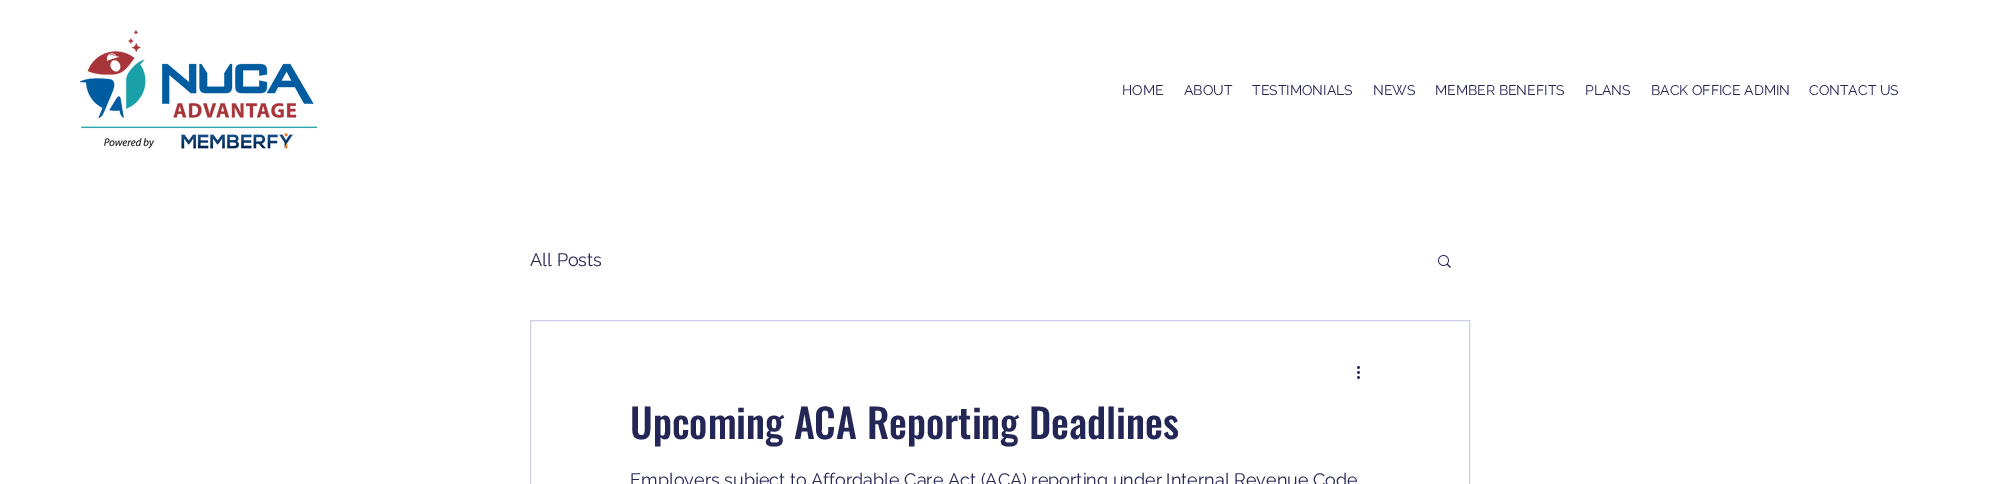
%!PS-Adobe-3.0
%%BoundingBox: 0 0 2000 484
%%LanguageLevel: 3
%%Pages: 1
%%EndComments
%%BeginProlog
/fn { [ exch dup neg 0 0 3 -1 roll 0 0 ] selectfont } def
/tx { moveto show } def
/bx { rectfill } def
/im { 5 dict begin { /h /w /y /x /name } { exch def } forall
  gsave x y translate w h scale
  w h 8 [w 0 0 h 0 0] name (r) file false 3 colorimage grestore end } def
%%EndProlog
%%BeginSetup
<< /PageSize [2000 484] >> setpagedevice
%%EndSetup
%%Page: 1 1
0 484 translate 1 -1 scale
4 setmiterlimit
1 setgray
0 0 2000 484 bx
(image0.raw) 80 30 237 119 im
/Raleway-Regular 14 fn
0.141 0.149 0.337 setrgbcolor
(HOME) 1122 95 tx
(ABOUT) 1184 95 tx
(TESTIMONIALS) 1252 95 tx
(NEWS) 1373 95 tx
(MEMBER BENEFITS) 1435 95 tx
(PLANS) 1585 95 tx
(BACK OFFICE ADMIN) 1651 95 tx
(CONTACT US) 1809 95 tx
/Raleway-Regular 18 fn
(All Posts) 530 266 tx
(image1.raw) 1438 255 13 13 im
0.8 0.804 0.914 setrgbcolor
530.5 320.5 939 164 rectstroke
(image2.raw) 1357 366 3 13 im
/Oswald-Medium 40 fn
0.141 0.149 0.337 setrgbcolor
(Upcoming ACA Reporting Deadlines) 630 439 tx
/Raleway-Regular 18 fn
(Employers subject to Affordable Care Act \(ACA\) reporting under Internal Revenue Code) 630 486 tx
showpage
%%EOF
